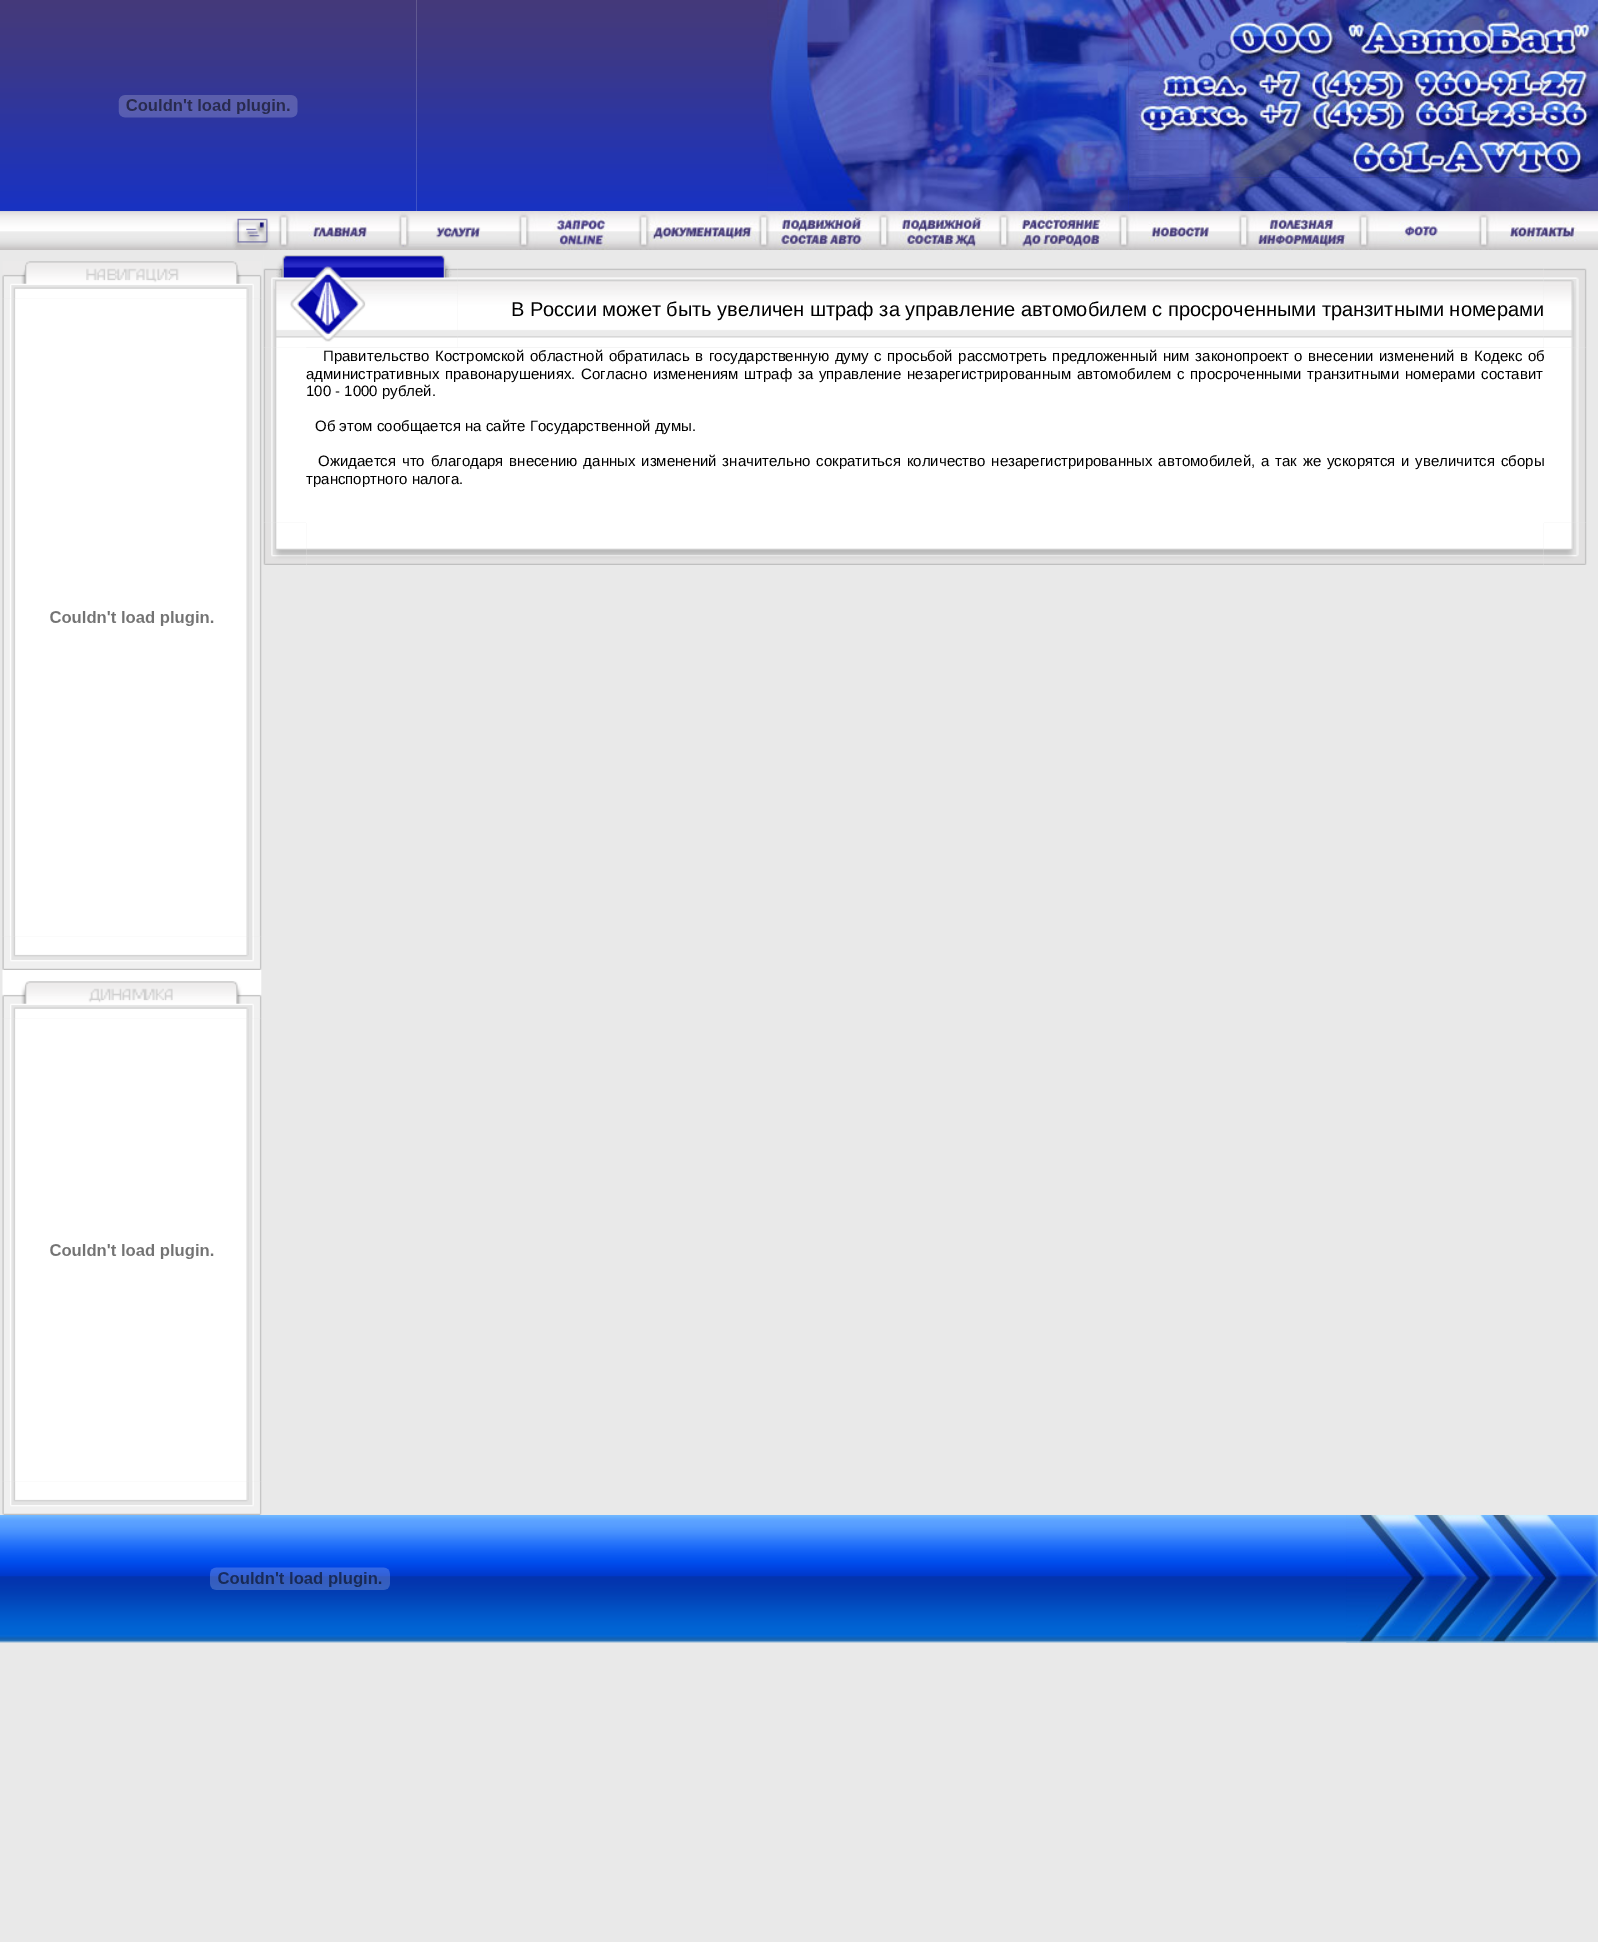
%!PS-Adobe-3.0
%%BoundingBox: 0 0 1598 1942
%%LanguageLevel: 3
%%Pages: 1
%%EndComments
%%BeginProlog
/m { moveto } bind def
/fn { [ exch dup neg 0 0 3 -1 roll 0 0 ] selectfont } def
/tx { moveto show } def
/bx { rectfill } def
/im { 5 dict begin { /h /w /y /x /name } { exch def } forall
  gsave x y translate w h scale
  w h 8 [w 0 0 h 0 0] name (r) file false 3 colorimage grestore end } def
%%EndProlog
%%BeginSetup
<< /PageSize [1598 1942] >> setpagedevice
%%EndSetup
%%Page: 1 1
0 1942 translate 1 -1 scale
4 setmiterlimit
0.914 setgray
0 0 1598 1942 bx
(image0.raw) 0 0 417 212 im
(image1.raw) 118 95 180 23 im
(image2.raw) 416 0 4 212 im
(image3.raw) 420 0 1178 212 im
(image7.raw) 0 211 1598 39 im
(image6.raw) 1128 177 470 35 im
(image4.raw) 767 0 362 212 im
(image5.raw) 1128 0 470 178 im
(image8.raw) 226 211 53 39 im
(image9.raw) 278 211 121 39 im
(image10.raw) 398 211 121 37 im
(image11.raw) 518 211 121 39 im
(image12.raw) 638 211 121 39 im
(image13.raw) 758 211 121 39 im
(image14.raw) 878 211 121 39 im
(image15.raw) 998 211 121 39 im
(image16.raw) 1118 211 121 39 im
(image17.raw) 1238 211 121 39 im
(image18.raw) 1358 211 121 39 im
(image19.raw) 1478 211 120 39 im
(image21.raw) 2 298 260 639 im
(image20.raw) 2 261 260 38 im
(image22.raw) 50 611 164 15 im
(image23.raw) 2 936 260 34 im
(image25.raw) 2 1018 260 464 im
(image24.raw) 2 970 260 49 im
(image22.raw) 50 1244 164 15 im
(image23.raw) 2 1481 260 34 im
(image27.raw) 457 268 1087 80 im
(image29.raw) 263 347 44 176 im
(image26.raw) 263 255 195 93 im
/LiberationSans-Regular 20 fn
0 setgray
(В России может быть увеличен штраф за управление автомобилем с просроченными транзитными номерами) 511 316 tx
(image30.raw) 1544 347 43 176 im
(image28.raw) 1544 268 43 80 im
1 setgray
306 348 1238 175 bx
/LiberationSans-Regular 15 fn
0 setgray
323 361 m 1.4 0 32 (Правительство Костромской областной обратилась в государственную думу с просьбой рассмотреть предложенный ним законопроект о внесении изменений в Кодекс об) widthshow
306 379 m 1.6 0 32 (административных правонарушениях. Согласно изменениям штраф за управление незарегистрированным автомобилем с просроченными транзитными номерами составит) widthshow
(100 - 1000 рублей.) 306 396 tx
(Об этом сообщается на сайте Государственной думы.) 315 431 tx
318 466 m 1.6 0 32 (Ожидается что благодаря внесению данных изменений значительно сократиться количество незарегистрированных автомобилей, а так же ускорятся и увеличится сборы) widthshow
(транспортного налога.) 306 484 tx
(image31.raw) 263 522 43 43 im
(image32.raw) 306 523 1238 42 im
(image33.raw) 1544 522 43 43 im
(image34.raw) 0 1515 1598 128 im
(image35.raw) 210 1567 180 23 im
(image36.raw) 1346 1515 252 128 im
showpage
%%EOF
